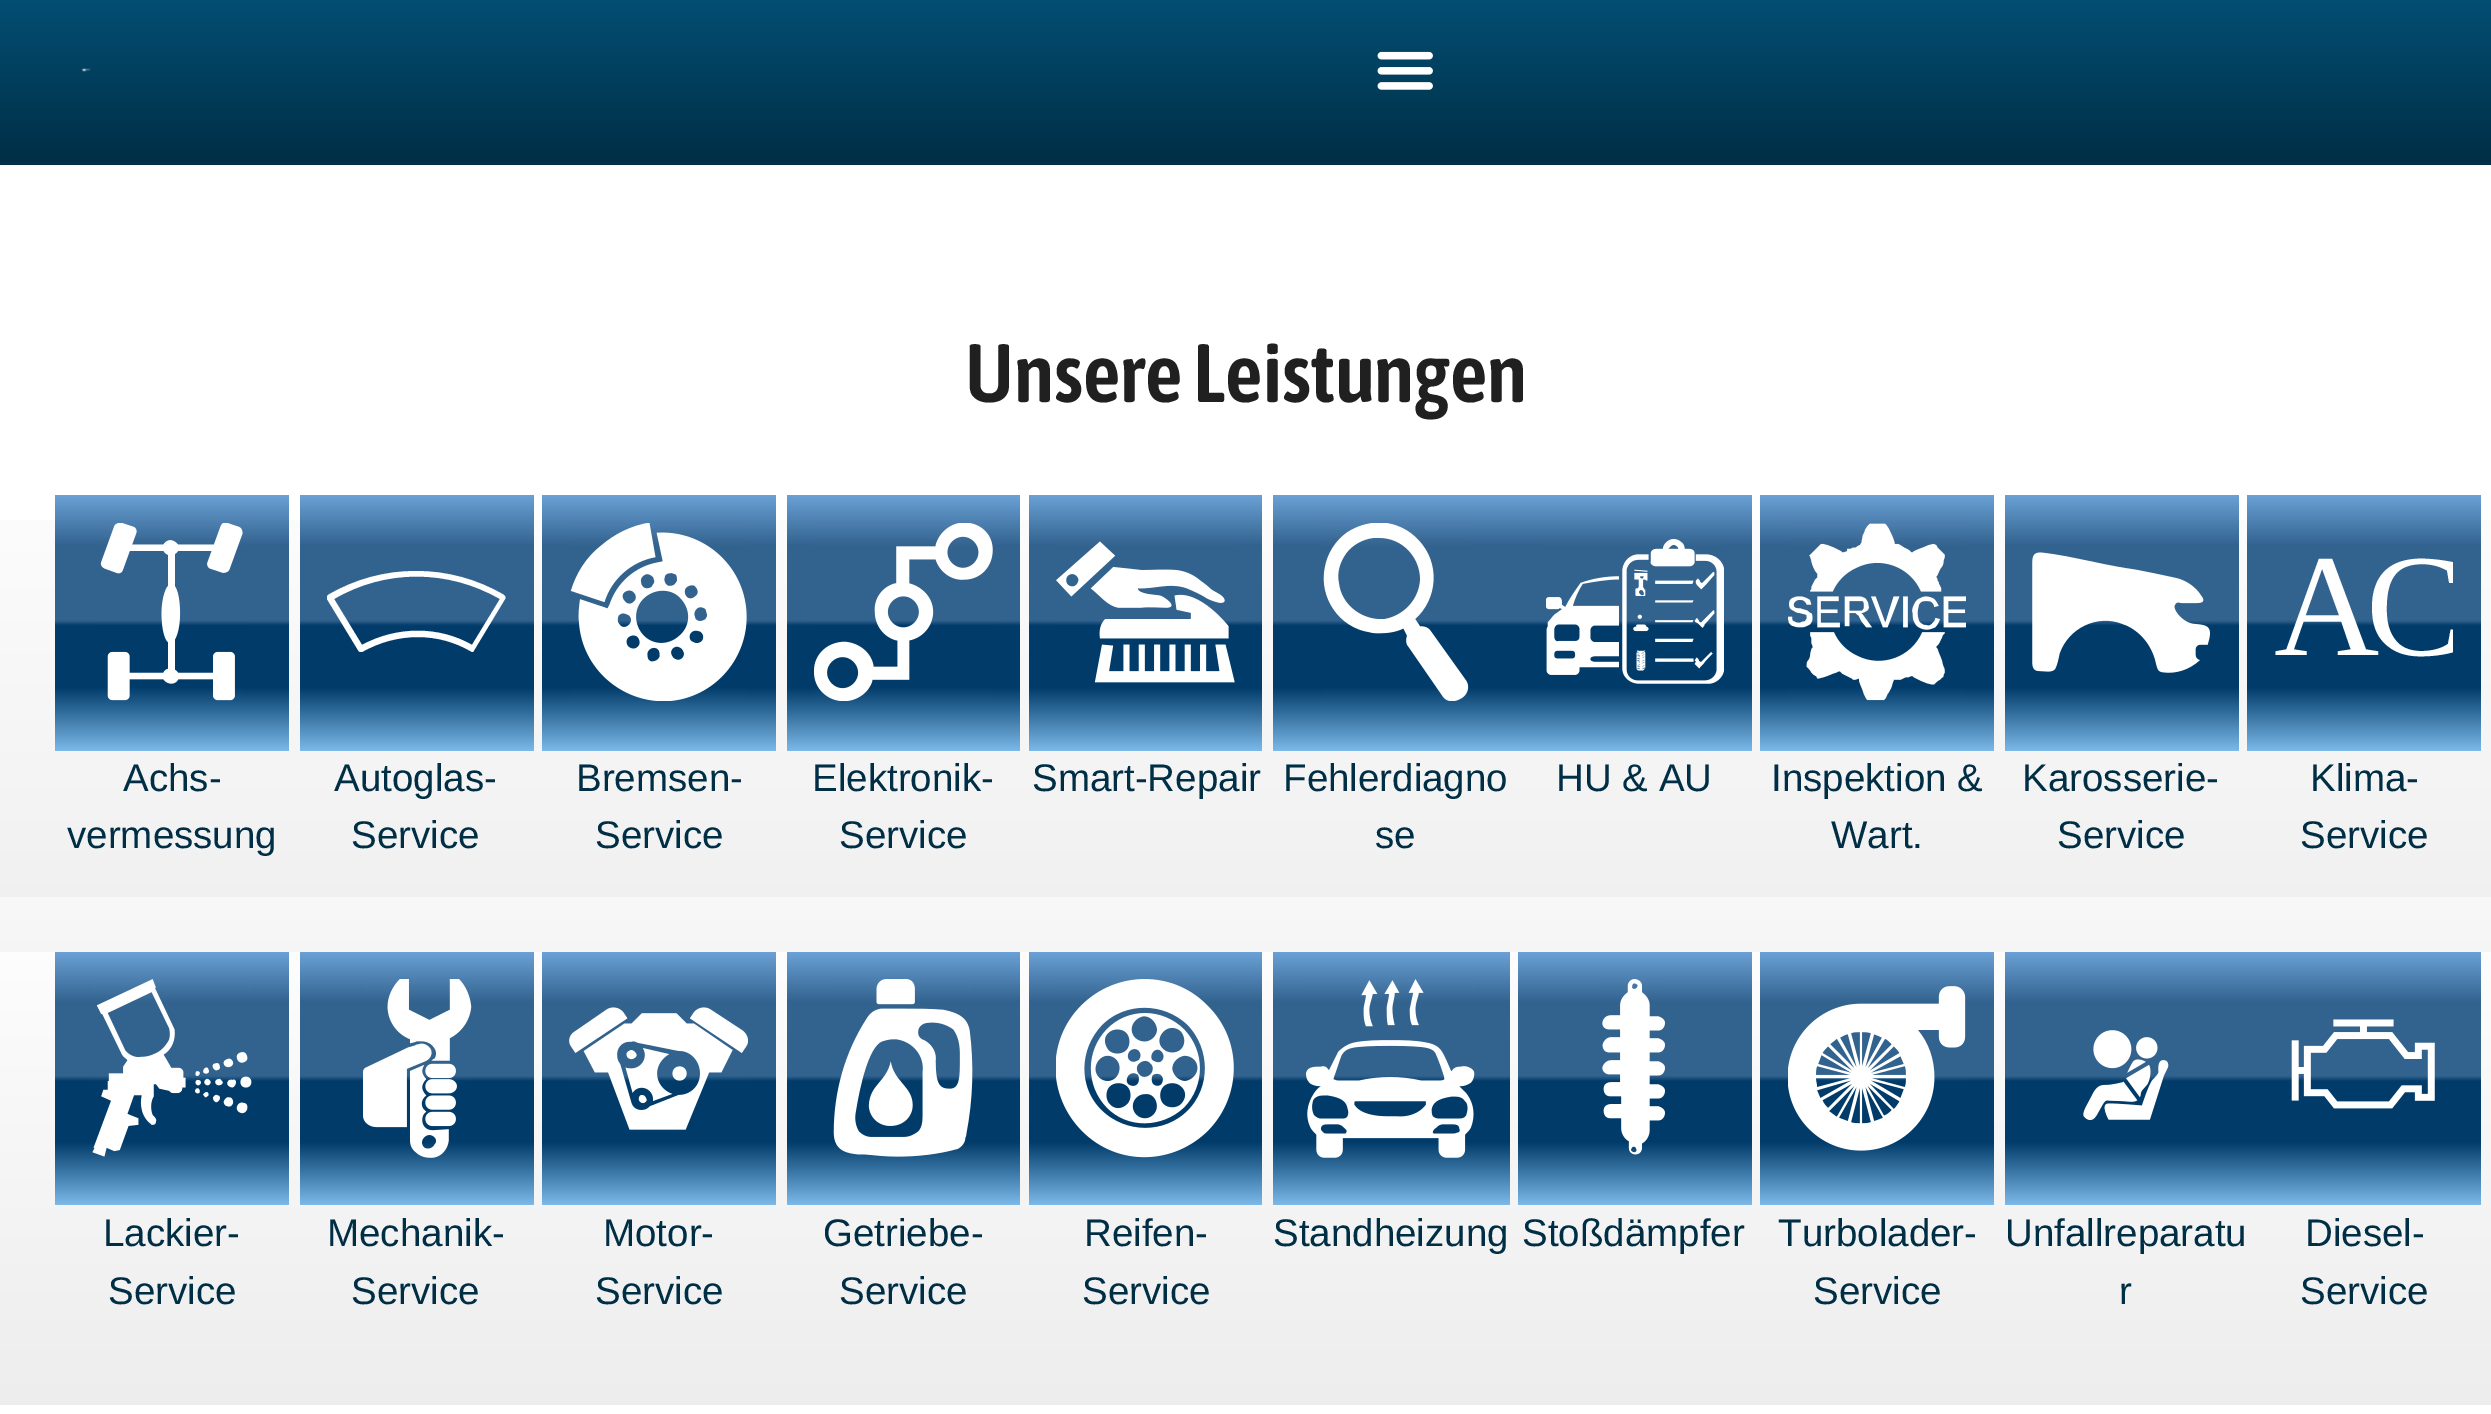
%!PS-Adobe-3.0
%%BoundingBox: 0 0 2491 1414
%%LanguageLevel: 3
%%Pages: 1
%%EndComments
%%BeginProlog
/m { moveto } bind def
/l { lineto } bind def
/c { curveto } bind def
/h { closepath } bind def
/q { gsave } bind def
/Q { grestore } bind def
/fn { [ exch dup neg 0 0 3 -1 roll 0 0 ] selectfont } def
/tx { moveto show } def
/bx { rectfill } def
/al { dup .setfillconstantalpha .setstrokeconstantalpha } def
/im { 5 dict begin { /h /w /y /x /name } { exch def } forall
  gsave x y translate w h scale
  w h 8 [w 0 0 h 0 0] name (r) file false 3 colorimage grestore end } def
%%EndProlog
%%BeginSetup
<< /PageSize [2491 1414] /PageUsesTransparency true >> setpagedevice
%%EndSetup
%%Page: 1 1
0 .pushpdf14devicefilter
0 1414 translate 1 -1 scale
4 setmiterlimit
1 setgray
0 0 2491 1414 bx
q 0 0 m 2491 0 l 2491 165 l 0 165 l h clip newpath
<< /ShadingType 2 /ColorSpace /DeviceRGB /Coords [1246 0 1246 165] /Extend [true true] /Function << /FunctionType 2 /Domain [0 1] /C0 [0.012 0.306 0.451] /C1 [0 0.18 0.271] /N 1 >> >> shfill Q
(image0.raw) 82 68 9 4 im
(image1.raw) 1377 51 56 39 im
/AsapCondensed-SemiBold 82.5 fn
0.125 setgray
(Unsere Leistungen) 965 402 tx
q 0 520 m 2491 520 l 2491 952 l 0 952 l h clip newpath
<< /ShadingType 2 /ColorSpace /DeviceRGB /Coords [1246 440 1246 952] /Extend [true true] /Function << /FunctionType 2 /Domain [0 1] /C0 [1 1 1] /C1 [0.937 0.937 0.937] /N 1 >> >> shfill Q
q 55 495 m 289 495 l 289 751 l 55 751 l h clip newpath
<< /ShadingType 2 /ColorSpace /DeviceRGB /Coords [55 495 55 751] /Extend [true true] /Function << /FunctionType 3 /Domain [0 1] /Functions [<< /FunctionType 2 /Domain [0 1] /C0 [0.42 0.631 0.839] /C1 [0.196 0.384 0.557] /N 1 >> << /FunctionType 2 /Domain [0 1] /C0 [0.196 0.384 0.557] /C1 [0.196 0.384 0.557] /N 1 >> << /FunctionType 2 /Domain [0 1] /C0 [0.196 0.384 0.557] /C1 [0 0.231 0.416] /N 1 >> << /FunctionType 2 /Domain [0 1] /C0 [0 0.231 0.416] /C1 [0 0.231 0.416] /N 1 >> << /FunctionType 2 /Domain [0 1] /C0 [0 0.231 0.416] /C1 [0.49 0.725 0.91] /N 1 >>] /Bounds [0.2 0.49 0.51 0.75] /Encode [0 1 0 1 0 1 0 1 0 1] >> >> shfill Q
(image2.raw) 100 523 143 178 im
/LiberationSans-Regular 38.5 fn
0 0.18 0.271 setrgbcolor
(Achs-) 123 791 tx
(vermessung) 67 848 tx
q 300 495 m 534 495 l 534 751 l 300 751 l h clip newpath
<< /ShadingType 2 /ColorSpace /DeviceRGB /Coords [300 495 300 751] /Extend [true true] /Function << /FunctionType 3 /Domain [0 1] /Functions [<< /FunctionType 2 /Domain [0 1] /C0 [0.42 0.631 0.839] /C1 [0.196 0.384 0.557] /N 1 >> << /FunctionType 2 /Domain [0 1] /C0 [0.196 0.384 0.557] /C1 [0.196 0.384 0.557] /N 1 >> << /FunctionType 2 /Domain [0 1] /C0 [0.196 0.384 0.557] /C1 [0 0.231 0.416] /N 1 >> << /FunctionType 2 /Domain [0 1] /C0 [0 0.231 0.416] /C1 [0 0.231 0.416] /N 1 >> << /FunctionType 2 /Domain [0 1] /C0 [0 0.231 0.416] /C1 [0.49 0.725 0.91] /N 1 >>] /Bounds [0.2 0.49 0.51 0.75] /Encode [0 1 0 1 0 1 0 1 0 1] >> >> shfill Q
q
327 523 179 178 rectclip
1 setgray
473 652 m 472 652 l 439 632 397 632 362 652 c 360 652 359 652 358 650 c 327 599 l 326 598 327 596 328 595 c 382 563 450 563 504 595 c 505 596 506 597 505 599 c h 334 599 m 362 645 l 397 626 439 626 472 645 c 500 599 l 448 569 385 569 334 599 c h eofill
Q
(Autoglas-) 334 791 tx
(Service) 351 848 tx
q 542 495 m 776 495 l 776 751 l 542 751 l h clip newpath
<< /ShadingType 2 /ColorSpace /DeviceRGB /Coords [542 495 542 751] /Extend [true true] /Function << /FunctionType 3 /Domain [0 1] /Functions [<< /FunctionType 2 /Domain [0 1] /C0 [0.42 0.631 0.839] /C1 [0.196 0.384 0.557] /N 1 >> << /FunctionType 2 /Domain [0 1] /C0 [0.196 0.384 0.557] /C1 [0.196 0.384 0.557] /N 1 >> << /FunctionType 2 /Domain [0 1] /C0 [0.196 0.384 0.557] /C1 [0 0.231 0.416] /N 1 >> << /FunctionType 2 /Domain [0 1] /C0 [0 0.231 0.416] /C1 [0 0.231 0.416] /N 1 >> << /FunctionType 2 /Domain [0 1] /C0 [0 0.231 0.416] /C1 [0.49 0.725 0.91] /N 1 >>] /Bounds [0.2 0.49 0.51 0.75] /Encode [0 1 0 1 0 1 0 1 0 1] >> >> shfill Q
(image3.raw) 570 523 177 178 im
(Bremsen-) 576 791 tx
(Service) 595 848 tx
q 787 495 m 1020 495 l 1020 751 l 787 751 l h clip newpath
<< /ShadingType 2 /ColorSpace /DeviceRGB /Coords [787 495 787 751] /Extend [true true] /Function << /FunctionType 3 /Domain [0 1] /Functions [<< /FunctionType 2 /Domain [0 1] /C0 [0.42 0.631 0.839] /C1 [0.196 0.384 0.557] /N 1 >> << /FunctionType 2 /Domain [0 1] /C0 [0.196 0.384 0.557] /C1 [0.196 0.384 0.557] /N 1 >> << /FunctionType 2 /Domain [0 1] /C0 [0.196 0.384 0.557] /C1 [0 0.231 0.416] /N 1 >> << /FunctionType 2 /Domain [0 1] /C0 [0 0.231 0.416] /C1 [0 0.231 0.416] /N 1 >> << /FunctionType 2 /Domain [0 1] /C0 [0 0.231 0.416] /C1 [0.49 0.725 0.91] /N 1 >>] /Bounds [0.2 0.49 0.51 0.75] /Encode [0 1 0 1 0 1 0 1 0 1] >> >> shfill Q
(image4.raw) 814 523 179 178 im
(Elektronik-) 812 791 tx
(Service) 839 848 tx
q 1029 495 m 1262 495 l 1262 751 l 1029 751 l h clip newpath
<< /ShadingType 2 /ColorSpace /DeviceRGB /Coords [1029 495 1029 751] /Extend [true true] /Function << /FunctionType 3 /Domain [0 1] /Functions [<< /FunctionType 2 /Domain [0 1] /C0 [0.42 0.631 0.839] /C1 [0.196 0.384 0.557] /N 1 >> << /FunctionType 2 /Domain [0 1] /C0 [0.196 0.384 0.557] /C1 [0.196 0.384 0.557] /N 1 >> << /FunctionType 2 /Domain [0 1] /C0 [0.196 0.384 0.557] /C1 [0 0.231 0.416] /N 1 >> << /FunctionType 2 /Domain [0 1] /C0 [0 0.231 0.416] /C1 [0 0.231 0.416] /N 1 >> << /FunctionType 2 /Domain [0 1] /C0 [0 0.231 0.416] /C1 [0.49 0.725 0.91] /N 1 >>] /Bounds [0.2 0.49 0.51 0.75] /Encode [0 1 0 1 0 1 0 1 0 1] >> >> shfill Q
(image5.raw) 1056 541 179 142 im
(Smart-Repair) 1032 791 tx
q 1273 495 m 1518 495 l 1518 751 l 1273 751 l h clip newpath
<< /ShadingType 2 /ColorSpace /DeviceRGB /Coords [1273 495 1273 751] /Extend [true true] /Function << /FunctionType 3 /Domain [0 1] /Functions [<< /FunctionType 2 /Domain [0 1] /C0 [0.42 0.631 0.839] /C1 [0.196 0.384 0.557] /N 1 >> << /FunctionType 2 /Domain [0 1] /C0 [0.196 0.384 0.557] /C1 [0.196 0.384 0.557] /N 1 >> << /FunctionType 2 /Domain [0 1] /C0 [0.196 0.384 0.557] /C1 [0 0.231 0.416] /N 1 >> << /FunctionType 2 /Domain [0 1] /C0 [0 0.231 0.416] /C1 [0 0.231 0.416] /N 1 >> << /FunctionType 2 /Domain [0 1] /C0 [0 0.231 0.416] /C1 [0.49 0.725 0.91] /N 1 >>] /Bounds [0.2 0.49 0.51 0.75] /Encode [0 1 0 1 0 1 0 1 0 1] >> >> shfill Q
(image6.raw) 1323 523 146 178 im
(Fehlerdiagno) 1283 791 tx
(se) 1375 848 tx
q 1518 495 m 1752 495 l 1752 751 l 1518 751 l h clip newpath
<< /ShadingType 2 /ColorSpace /DeviceRGB /Coords [1518 495 1518 751] /Extend [true true] /Function << /FunctionType 3 /Domain [0 1] /Functions [<< /FunctionType 2 /Domain [0 1] /C0 [0.42 0.631 0.839] /C1 [0.196 0.384 0.557] /N 1 >> << /FunctionType 2 /Domain [0 1] /C0 [0.196 0.384 0.557] /C1 [0.196 0.384 0.557] /N 1 >> << /FunctionType 2 /Domain [0 1] /C0 [0.196 0.384 0.557] /C1 [0 0.231 0.416] /N 1 >> << /FunctionType 2 /Domain [0 1] /C0 [0 0.231 0.416] /C1 [0 0.231 0.416] /N 1 >> << /FunctionType 2 /Domain [0 1] /C0 [0 0.231 0.416] /C1 [0.49 0.725 0.91] /N 1 >>] /Bounds [0.2 0.49 0.51 0.75] /Encode [0 1 0 1 0 1 0 1 0 1] >> >> shfill Q
(image7.raw) 1546 538 178 146 im
(HU & AU) 1556 791 tx
q 1760 495 m 1994 495 l 1994 751 l 1760 751 l h clip newpath
<< /ShadingType 2 /ColorSpace /DeviceRGB /Coords [1760 495 1760 751] /Extend [true true] /Function << /FunctionType 3 /Domain [0 1] /Functions [<< /FunctionType 2 /Domain [0 1] /C0 [0.42 0.631 0.839] /C1 [0.196 0.384 0.557] /N 1 >> << /FunctionType 2 /Domain [0 1] /C0 [0.196 0.384 0.557] /C1 [0.196 0.384 0.557] /N 1 >> << /FunctionType 2 /Domain [0 1] /C0 [0.196 0.384 0.557] /C1 [0 0.231 0.416] /N 1 >> << /FunctionType 2 /Domain [0 1] /C0 [0 0.231 0.416] /C1 [0 0.231 0.416] /N 1 >> << /FunctionType 2 /Domain [0 1] /C0 [0 0.231 0.416] /C1 [0.49 0.725 0.91] /N 1 >>] /Bounds [0.2 0.49 0.51 0.75] /Encode [0 1 0 1 0 1 0 1 0 1] >> >> shfill Q
(image8.raw) 1788 523 178 178 im
(Inspektion &) 1771 791 tx
(Wart.) 1831 848 tx
q 2005 495 m 2239 495 l 2239 751 l 2005 751 l h clip newpath
<< /ShadingType 2 /ColorSpace /DeviceRGB /Coords [2005 495 2005 751] /Extend [true true] /Function << /FunctionType 3 /Domain [0 1] /Functions [<< /FunctionType 2 /Domain [0 1] /C0 [0.42 0.631 0.839] /C1 [0.196 0.384 0.557] /N 1 >> << /FunctionType 2 /Domain [0 1] /C0 [0.196 0.384 0.557] /C1 [0.196 0.384 0.557] /N 1 >> << /FunctionType 2 /Domain [0 1] /C0 [0.196 0.384 0.557] /C1 [0 0.231 0.416] /N 1 >> << /FunctionType 2 /Domain [0 1] /C0 [0 0.231 0.416] /C1 [0 0.231 0.416] /N 1 >> << /FunctionType 2 /Domain [0 1] /C0 [0 0.231 0.416] /C1 [0.49 0.725 0.91] /N 1 >>] /Bounds [0.2 0.49 0.51 0.75] /Encode [0 1 0 1 0 1 0 1 0 1] >> >> shfill Q
(image9.raw) 2032 552 178 121 im
(Karosserie-) 2022 791 tx
(Service) 2057 848 tx
q 2247 495 m 2481 495 l 2481 751 l 2247 751 l h clip newpath
<< /ShadingType 2 /ColorSpace /DeviceRGB /Coords [2247 495 2247 751] /Extend [true true] /Function << /FunctionType 3 /Domain [0 1] /Functions [<< /FunctionType 2 /Domain [0 1] /C0 [0.42 0.631 0.839] /C1 [0.196 0.384 0.557] /N 1 >> << /FunctionType 2 /Domain [0 1] /C0 [0.196 0.384 0.557] /C1 [0.196 0.384 0.557] /N 1 >> << /FunctionType 2 /Domain [0 1] /C0 [0.196 0.384 0.557] /C1 [0 0.231 0.416] /N 1 >> << /FunctionType 2 /Domain [0 1] /C0 [0 0.231 0.416] /C1 [0 0.231 0.416] /N 1 >> << /FunctionType 2 /Domain [0 1] /C0 [0 0.231 0.416] /C1 [0.49 0.725 0.91] /N 1 >>] /Bounds [0.2 0.49 0.51 0.75] /Encode [0 1 0 1 0 1 0 1 0 1] >> >> shfill Q
/LiberationSerif-Regular 146 fn
1 setgray
(A) 2274 655 tx
q
2274 523 179 178 rectclip
(C) 2366 655 tx
Q
/LiberationSans-Regular 38.5 fn
0 0.18 0.271 setrgbcolor
(Klima-) 2310 791 tx
(Service) 2300 848 tx
0.5 al
q 0 897 m 2491 897 l 2491 1405 l 0 1405 l h clip newpath
<< /ShadingType 2 /ColorSpace /DeviceRGB /Coords [1246 896 1246 1405] /Extend [true true] /Function << /FunctionType 2 /Domain [0 1] /C0 [1 1 1] /C1 [0.859 0.859 0.859] /N 1 >> >> shfill Q
1 al
q 55 952 m 289 952 l 289 1205 l 55 1205 l h clip newpath
<< /ShadingType 2 /ColorSpace /DeviceRGB /Coords [55 952 55 1205] /Extend [true true] /Function << /FunctionType 3 /Domain [0 1] /Functions [<< /FunctionType 2 /Domain [0 1] /C0 [0.42 0.631 0.839] /C1 [0.196 0.384 0.557] /N 1 >> << /FunctionType 2 /Domain [0 1] /C0 [0.196 0.384 0.557] /C1 [0.196 0.384 0.557] /N 1 >> << /FunctionType 2 /Domain [0 1] /C0 [0.196 0.384 0.557] /C1 [0 0.231 0.416] /N 1 >> << /FunctionType 2 /Domain [0 1] /C0 [0 0.231 0.416] /C1 [0 0.231 0.416] /N 1 >> << /FunctionType 2 /Domain [0 1] /C0 [0 0.231 0.416] /C1 [0.49 0.725 0.91] /N 1 >>] /Bounds [0.2 0.49 0.51 0.75] /Encode [0 1 0 1 0 1 0 1 0 1] >> >> shfill Q
(image10.raw) 92 979 160 178 im
(Lackier-) 103 1246 tx
(Service) 108 1304 tx
q 300 952 m 534 952 l 534 1205 l 300 1205 l h clip newpath
<< /ShadingType 2 /ColorSpace /DeviceRGB /Coords [300 952 300 1205] /Extend [true true] /Function << /FunctionType 3 /Domain [0 1] /Functions [<< /FunctionType 2 /Domain [0 1] /C0 [0.42 0.631 0.839] /C1 [0.196 0.384 0.557] /N 1 >> << /FunctionType 2 /Domain [0 1] /C0 [0.196 0.384 0.557] /C1 [0.196 0.384 0.557] /N 1 >> << /FunctionType 2 /Domain [0 1] /C0 [0.196 0.384 0.557] /C1 [0 0.231 0.416] /N 1 >> << /FunctionType 2 /Domain [0 1] /C0 [0 0.231 0.416] /C1 [0 0.231 0.416] /N 1 >> << /FunctionType 2 /Domain [0 1] /C0 [0 0.231 0.416] /C1 [0.49 0.725 0.91] /N 1 >>] /Bounds [0.2 0.49 0.51 0.75] /Encode [0 1 0 1 0 1 0 1 0 1] >> >> shfill Q
(image11.raw) 363 979 109 179 im
(Mechanik-) 327 1246 tx
(Service) 351 1304 tx
q 542 952 m 776 952 l 776 1205 l 542 1205 l h clip newpath
<< /ShadingType 2 /ColorSpace /DeviceRGB /Coords [542 952 542 1205] /Extend [true true] /Function << /FunctionType 3 /Domain [0 1] /Functions [<< /FunctionType 2 /Domain [0 1] /C0 [0.42 0.631 0.839] /C1 [0.196 0.384 0.557] /N 1 >> << /FunctionType 2 /Domain [0 1] /C0 [0.196 0.384 0.557] /C1 [0.196 0.384 0.557] /N 1 >> << /FunctionType 2 /Domain [0 1] /C0 [0.196 0.384 0.557] /C1 [0 0.231 0.416] /N 1 >> << /FunctionType 2 /Domain [0 1] /C0 [0 0.231 0.416] /C1 [0 0.231 0.416] /N 1 >> << /FunctionType 2 /Domain [0 1] /C0 [0 0.231 0.416] /C1 [0.49 0.725 0.91] /N 1 >>] /Bounds [0.2 0.49 0.51 0.75] /Encode [0 1 0 1 0 1 0 1 0 1] >> >> shfill Q
(image12.raw) 569 1007 179 123 im
(Motor-) 603 1246 tx
(Service) 595 1304 tx
q 787 952 m 1020 952 l 1020 1205 l 787 1205 l h clip newpath
<< /ShadingType 2 /ColorSpace /DeviceRGB /Coords [787 952 787 1205] /Extend [true true] /Function << /FunctionType 3 /Domain [0 1] /Functions [<< /FunctionType 2 /Domain [0 1] /C0 [0.42 0.631 0.839] /C1 [0.196 0.384 0.557] /N 1 >> << /FunctionType 2 /Domain [0 1] /C0 [0.196 0.384 0.557] /C1 [0.196 0.384 0.557] /N 1 >> << /FunctionType 2 /Domain [0 1] /C0 [0.196 0.384 0.557] /C1 [0 0.231 0.416] /N 1 >> << /FunctionType 2 /Domain [0 1] /C0 [0 0.231 0.416] /C1 [0 0.231 0.416] /N 1 >> << /FunctionType 2 /Domain [0 1] /C0 [0 0.231 0.416] /C1 [0.49 0.725 0.91] /N 1 >>] /Bounds [0.2 0.49 0.51 0.75] /Encode [0 1 0 1 0 1 0 1 0 1] >> >> shfill Q
(image13.raw) 833 979 140 178 im
(Getriebe-) 823 1246 tx
(Service) 839 1304 tx
q 1029 952 m 1262 952 l 1262 1205 l 1029 1205 l h clip newpath
<< /ShadingType 2 /ColorSpace /DeviceRGB /Coords [1029 952 1029 1205] /Extend [true true] /Function << /FunctionType 3 /Domain [0 1] /Functions [<< /FunctionType 2 /Domain [0 1] /C0 [0.42 0.631 0.839] /C1 [0.196 0.384 0.557] /N 1 >> << /FunctionType 2 /Domain [0 1] /C0 [0.196 0.384 0.557] /C1 [0.196 0.384 0.557] /N 1 >> << /FunctionType 2 /Domain [0 1] /C0 [0.196 0.384 0.557] /C1 [0 0.231 0.416] /N 1 >> << /FunctionType 2 /Domain [0 1] /C0 [0 0.231 0.416] /C1 [0 0.231 0.416] /N 1 >> << /FunctionType 2 /Domain [0 1] /C0 [0 0.231 0.416] /C1 [0.49 0.725 0.91] /N 1 >>] /Bounds [0.2 0.49 0.51 0.75] /Encode [0 1 0 1 0 1 0 1 0 1] >> >> shfill Q
(image14.raw) 1056 979 178 179 im
(Reifen-) 1084 1246 tx
(Service) 1082 1304 tx
q 1273 952 m 1510 952 l 1510 1205 l 1273 1205 l h clip newpath
<< /ShadingType 2 /ColorSpace /DeviceRGB /Coords [1273 952 1273 1205] /Extend [true true] /Function << /FunctionType 3 /Domain [0 1] /Functions [<< /FunctionType 2 /Domain [0 1] /C0 [0.42 0.631 0.839] /C1 [0.196 0.384 0.557] /N 1 >> << /FunctionType 2 /Domain [0 1] /C0 [0.196 0.384 0.557] /C1 [0.196 0.384 0.557] /N 1 >> << /FunctionType 2 /Domain [0 1] /C0 [0.196 0.384 0.557] /C1 [0 0.231 0.416] /N 1 >> << /FunctionType 2 /Domain [0 1] /C0 [0 0.231 0.416] /C1 [0 0.231 0.416] /N 1 >> << /FunctionType 2 /Domain [0 1] /C0 [0 0.231 0.416] /C1 [0.49 0.725 0.91] /N 1 >>] /Bounds [0.2 0.49 0.51 0.75] /Encode [0 1 0 1 0 1 0 1 0 1] >> >> shfill Q
(image15.raw) 1305 979 170 179 im
(Standheizung) 1273 1246 tx
q 1518 952 m 1752 952 l 1752 1205 l 1518 1205 l h clip newpath
<< /ShadingType 2 /ColorSpace /DeviceRGB /Coords [1518 952 1518 1205] /Extend [true true] /Function << /FunctionType 3 /Domain [0 1] /Functions [<< /FunctionType 2 /Domain [0 1] /C0 [0.42 0.631 0.839] /C1 [0.196 0.384 0.557] /N 1 >> << /FunctionType 2 /Domain [0 1] /C0 [0.196 0.384 0.557] /C1 [0.196 0.384 0.557] /N 1 >> << /FunctionType 2 /Domain [0 1] /C0 [0.196 0.384 0.557] /C1 [0 0.231 0.416] /N 1 >> << /FunctionType 2 /Domain [0 1] /C0 [0 0.231 0.416] /C1 [0 0.231 0.416] /N 1 >> << /FunctionType 2 /Domain [0 1] /C0 [0 0.231 0.416] /C1 [0.49 0.725 0.91] /N 1 >>] /Bounds [0.2 0.49 0.51 0.75] /Encode [0 1 0 1 0 1 0 1 0 1] >> >> shfill Q
(image16.raw) 1602 979 63 176 im
(Stoßdämpfer) 1522 1246 tx
q 1760 952 m 1994 952 l 1994 1205 l 1760 1205 l h clip newpath
<< /ShadingType 2 /ColorSpace /DeviceRGB /Coords [1760 952 1760 1205] /Extend [true true] /Function << /FunctionType 3 /Domain [0 1] /Functions [<< /FunctionType 2 /Domain [0 1] /C0 [0.42 0.631 0.839] /C1 [0.196 0.384 0.557] /N 1 >> << /FunctionType 2 /Domain [0 1] /C0 [0.196 0.384 0.557] /C1 [0.196 0.384 0.557] /N 1 >> << /FunctionType 2 /Domain [0 1] /C0 [0.196 0.384 0.557] /C1 [0 0.231 0.416] /N 1 >> << /FunctionType 2 /Domain [0 1] /C0 [0 0.231 0.416] /C1 [0 0.231 0.416] /N 1 >> << /FunctionType 2 /Domain [0 1] /C0 [0 0.231 0.416] /C1 [0.49 0.725 0.91] /N 1 >>] /Bounds [0.2 0.49 0.51 0.75] /Encode [0 1 0 1 0 1 0 1 0 1] >> >> shfill Q
(image17.raw) 1788 986 178 165 im
(Turbolader-) 1778 1246 tx
(Service) 1813 1304 tx
q 2005 952 m 2247 952 l 2247 1205 l 2005 1205 l h clip newpath
<< /ShadingType 2 /ColorSpace /DeviceRGB /Coords [2005 952 2005 1205] /Extend [true true] /Function << /FunctionType 3 /Domain [0 1] /Functions [<< /FunctionType 2 /Domain [0 1] /C0 [0.42 0.631 0.839] /C1 [0.196 0.384 0.557] /N 1 >> << /FunctionType 2 /Domain [0 1] /C0 [0.196 0.384 0.557] /C1 [0.196 0.384 0.557] /N 1 >> << /FunctionType 2 /Domain [0 1] /C0 [0.196 0.384 0.557] /C1 [0 0.231 0.416] /N 1 >> << /FunctionType 2 /Domain [0 1] /C0 [0 0.231 0.416] /C1 [0 0.231 0.416] /N 1 >> << /FunctionType 2 /Domain [0 1] /C0 [0 0.231 0.416] /C1 [0.49 0.725 0.91] /N 1 >>] /Bounds [0.2 0.49 0.51 0.75] /Encode [0 1 0 1 0 1 0 1 0 1] >> >> shfill Q
(image18.raw) 2083 1030 86 91 im
(Unfallreparatu) 2005 1246 tx
(r) 2119 1304 tx
q 2247 952 m 2481 952 l 2481 1205 l 2247 1205 l h clip newpath
<< /ShadingType 2 /ColorSpace /DeviceRGB /Coords [2247 952 2247 1205] /Extend [true true] /Function << /FunctionType 3 /Domain [0 1] /Functions [<< /FunctionType 2 /Domain [0 1] /C0 [0.42 0.631 0.839] /C1 [0.196 0.384 0.557] /N 1 >> << /FunctionType 2 /Domain [0 1] /C0 [0.196 0.384 0.557] /C1 [0.196 0.384 0.557] /N 1 >> << /FunctionType 2 /Domain [0 1] /C0 [0.196 0.384 0.557] /C1 [0 0.231 0.416] /N 1 >> << /FunctionType 2 /Domain [0 1] /C0 [0 0.231 0.416] /C1 [0 0.231 0.416] /N 1 >> << /FunctionType 2 /Domain [0 1] /C0 [0 0.231 0.416] /C1 [0.49 0.725 0.91] /N 1 >>] /Bounds [0.2 0.49 0.51 0.75] /Encode [0 1 0 1 0 1 0 1 0 1] >> >> shfill Q
(image19.raw) 2291 1019 144 90 im
(Diesel-) 2305 1246 tx
(Service) 2300 1304 tx
.poppdf14devicefilter showpage
%%EOF
